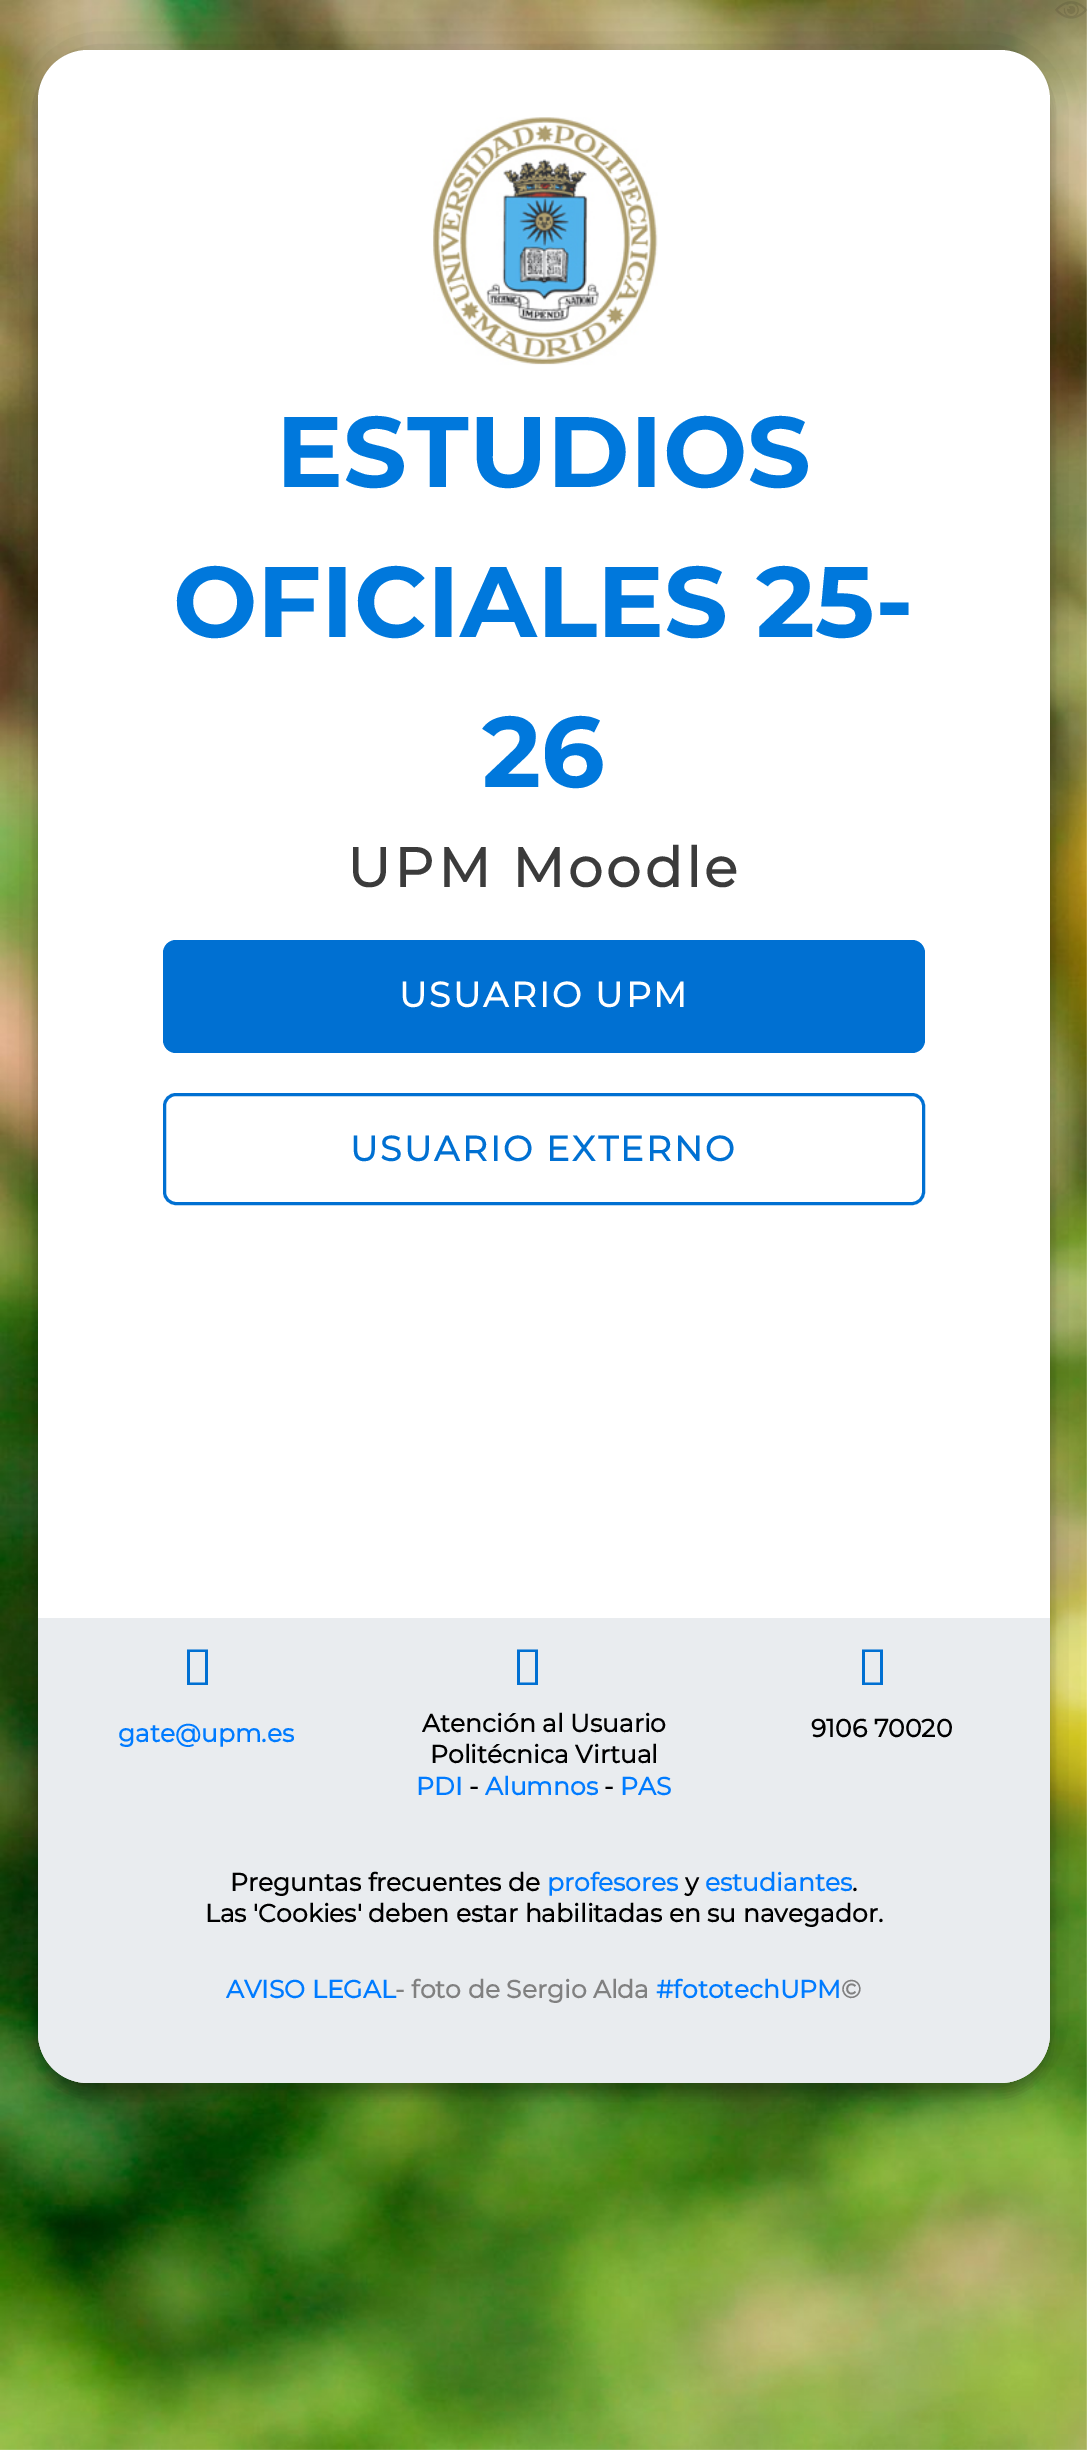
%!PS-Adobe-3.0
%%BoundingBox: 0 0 1087 2450
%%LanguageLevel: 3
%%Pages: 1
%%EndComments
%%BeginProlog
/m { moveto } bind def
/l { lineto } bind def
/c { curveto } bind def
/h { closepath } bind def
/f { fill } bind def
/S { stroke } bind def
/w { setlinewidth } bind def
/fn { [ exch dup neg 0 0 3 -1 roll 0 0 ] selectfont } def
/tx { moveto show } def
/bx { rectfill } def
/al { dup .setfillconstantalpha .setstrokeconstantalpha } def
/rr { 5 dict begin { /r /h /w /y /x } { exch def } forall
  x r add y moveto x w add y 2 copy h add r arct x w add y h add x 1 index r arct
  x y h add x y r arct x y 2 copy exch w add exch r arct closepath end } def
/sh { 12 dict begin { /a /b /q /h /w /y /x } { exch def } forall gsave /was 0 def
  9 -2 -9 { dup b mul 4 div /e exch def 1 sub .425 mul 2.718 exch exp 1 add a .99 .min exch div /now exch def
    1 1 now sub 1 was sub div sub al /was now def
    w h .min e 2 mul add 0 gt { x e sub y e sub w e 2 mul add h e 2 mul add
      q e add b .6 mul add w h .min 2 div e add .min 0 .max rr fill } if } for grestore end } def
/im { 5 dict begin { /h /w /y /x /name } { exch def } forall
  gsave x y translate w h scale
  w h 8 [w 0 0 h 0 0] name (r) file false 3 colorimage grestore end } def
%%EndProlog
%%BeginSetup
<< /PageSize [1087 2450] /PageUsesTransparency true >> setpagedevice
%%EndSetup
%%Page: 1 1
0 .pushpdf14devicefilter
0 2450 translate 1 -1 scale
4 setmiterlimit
1 setgray
0 0 1087 2450 bx
(image0.raw) 0 0 1087 2450 im
(image1.raw) 1055 1 32 18 im
0 setgray
38 63 1012 2032 50 6 0.24 sh
38 50 1012 2033 50 25 0.2 sh
1 setgray
38 50 1012 2033 50 rr f
(image2.raw) 433 117 225 248 im
/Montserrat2-Bold 100 fn
0 0.471 0.863 setrgbcolor
(ESTUDIOS) 276 487 tx
(OFICIALES 25-) 173 637 tx
(26) 482 787 tx
/Montserrat-Bold 55 fn
0.231 setgray
347 887 m 3.75 0 (UPM Moodle) ashow
0 0.439 0.824 setrgbcolor
163 940 762 113 13 rr f
/Montserrat-Bold 35 fn
1 setgray
399 1007 m 2.5 0 (USUARIO UPM) ashow
0 0.439 0.824 setrgbcolor
3 w
164.5 1094.5 759 109 11.5 rr S
350 1161 m 2.5 0 (USUARIO EXTERNO) ashow
0.914 0.925 0.937 setrgbcolor
38 1618 m 1050 1618 l 1050 2033 l 1050 2060.5 1027.5 2083 1000 2083 c 88 2083 l 60.5 2083 38 2060.5 38 2033 c h f
0 0.439 0.824 setrgbcolor
187 1685 m 187 1649.5 l 208 1649.5 l 208 1685 l h 190 1682.5 m 205 1682.5 l 205 1652 l 190 1652 l h f
/Montserrat-Bold 25 fn
0 0.482 1 setrgbcolor
(gate@upm.es) 118 1742 tx
0 0.439 0.824 setrgbcolor
517 1685 m 517 1649.5 l 538 1649.5 l 538 1685 l h 520 1682.5 m 535 1682.5 l 535 1652 l 520 1652 l h f
0 setgray
(Atención al Usuario) 422 1732 tx
(Politécnica Virtual) 430 1763 tx
0 0.482 1 setrgbcolor
(PDI) 416 1795 tx
0 setgray
(-) 469 1795 tx
0 0.482 1 setrgbcolor
(Alumnos) 485 1795 tx
0 setgray
(-) 604 1795 tx
0 0.482 1 setrgbcolor
(PAS) 620 1795 tx
0 0.439 0.824 setrgbcolor
862 1685 m 862 1649.5 l 883 1649.5 l 883 1685 l h 865 1682.5 m 880 1682.5 l 880 1652 l 865 1652 l h f
0 setgray
(9106 70020) 811 1737 tx
(Preguntas frecuentes de) 230 1891 tx
0 0.482 1 setrgbcolor
(profesores) 547 1891 tx
0 setgray
(y) 685 1891 tx
0 0.482 1 setrgbcolor
(estudiantes) 705 1891 tx
0 setgray
(.) 852 1891 tx
(Las 'Cookies' deben estar habilitadas en su navegador.) 205 1922 tx
0 0.482 1 setrgbcolor
(AVISO LEGAL) 226 1998 tx
0.502 setgray
(- foto de Sergio Alda) 395 1998 tx
0 0.482 1 setrgbcolor
(#fototechUPM) 656 1998 tx
0.502 setgray
(©) 841 1998 tx
.poppdf14devicefilter showpage
%%EOF
